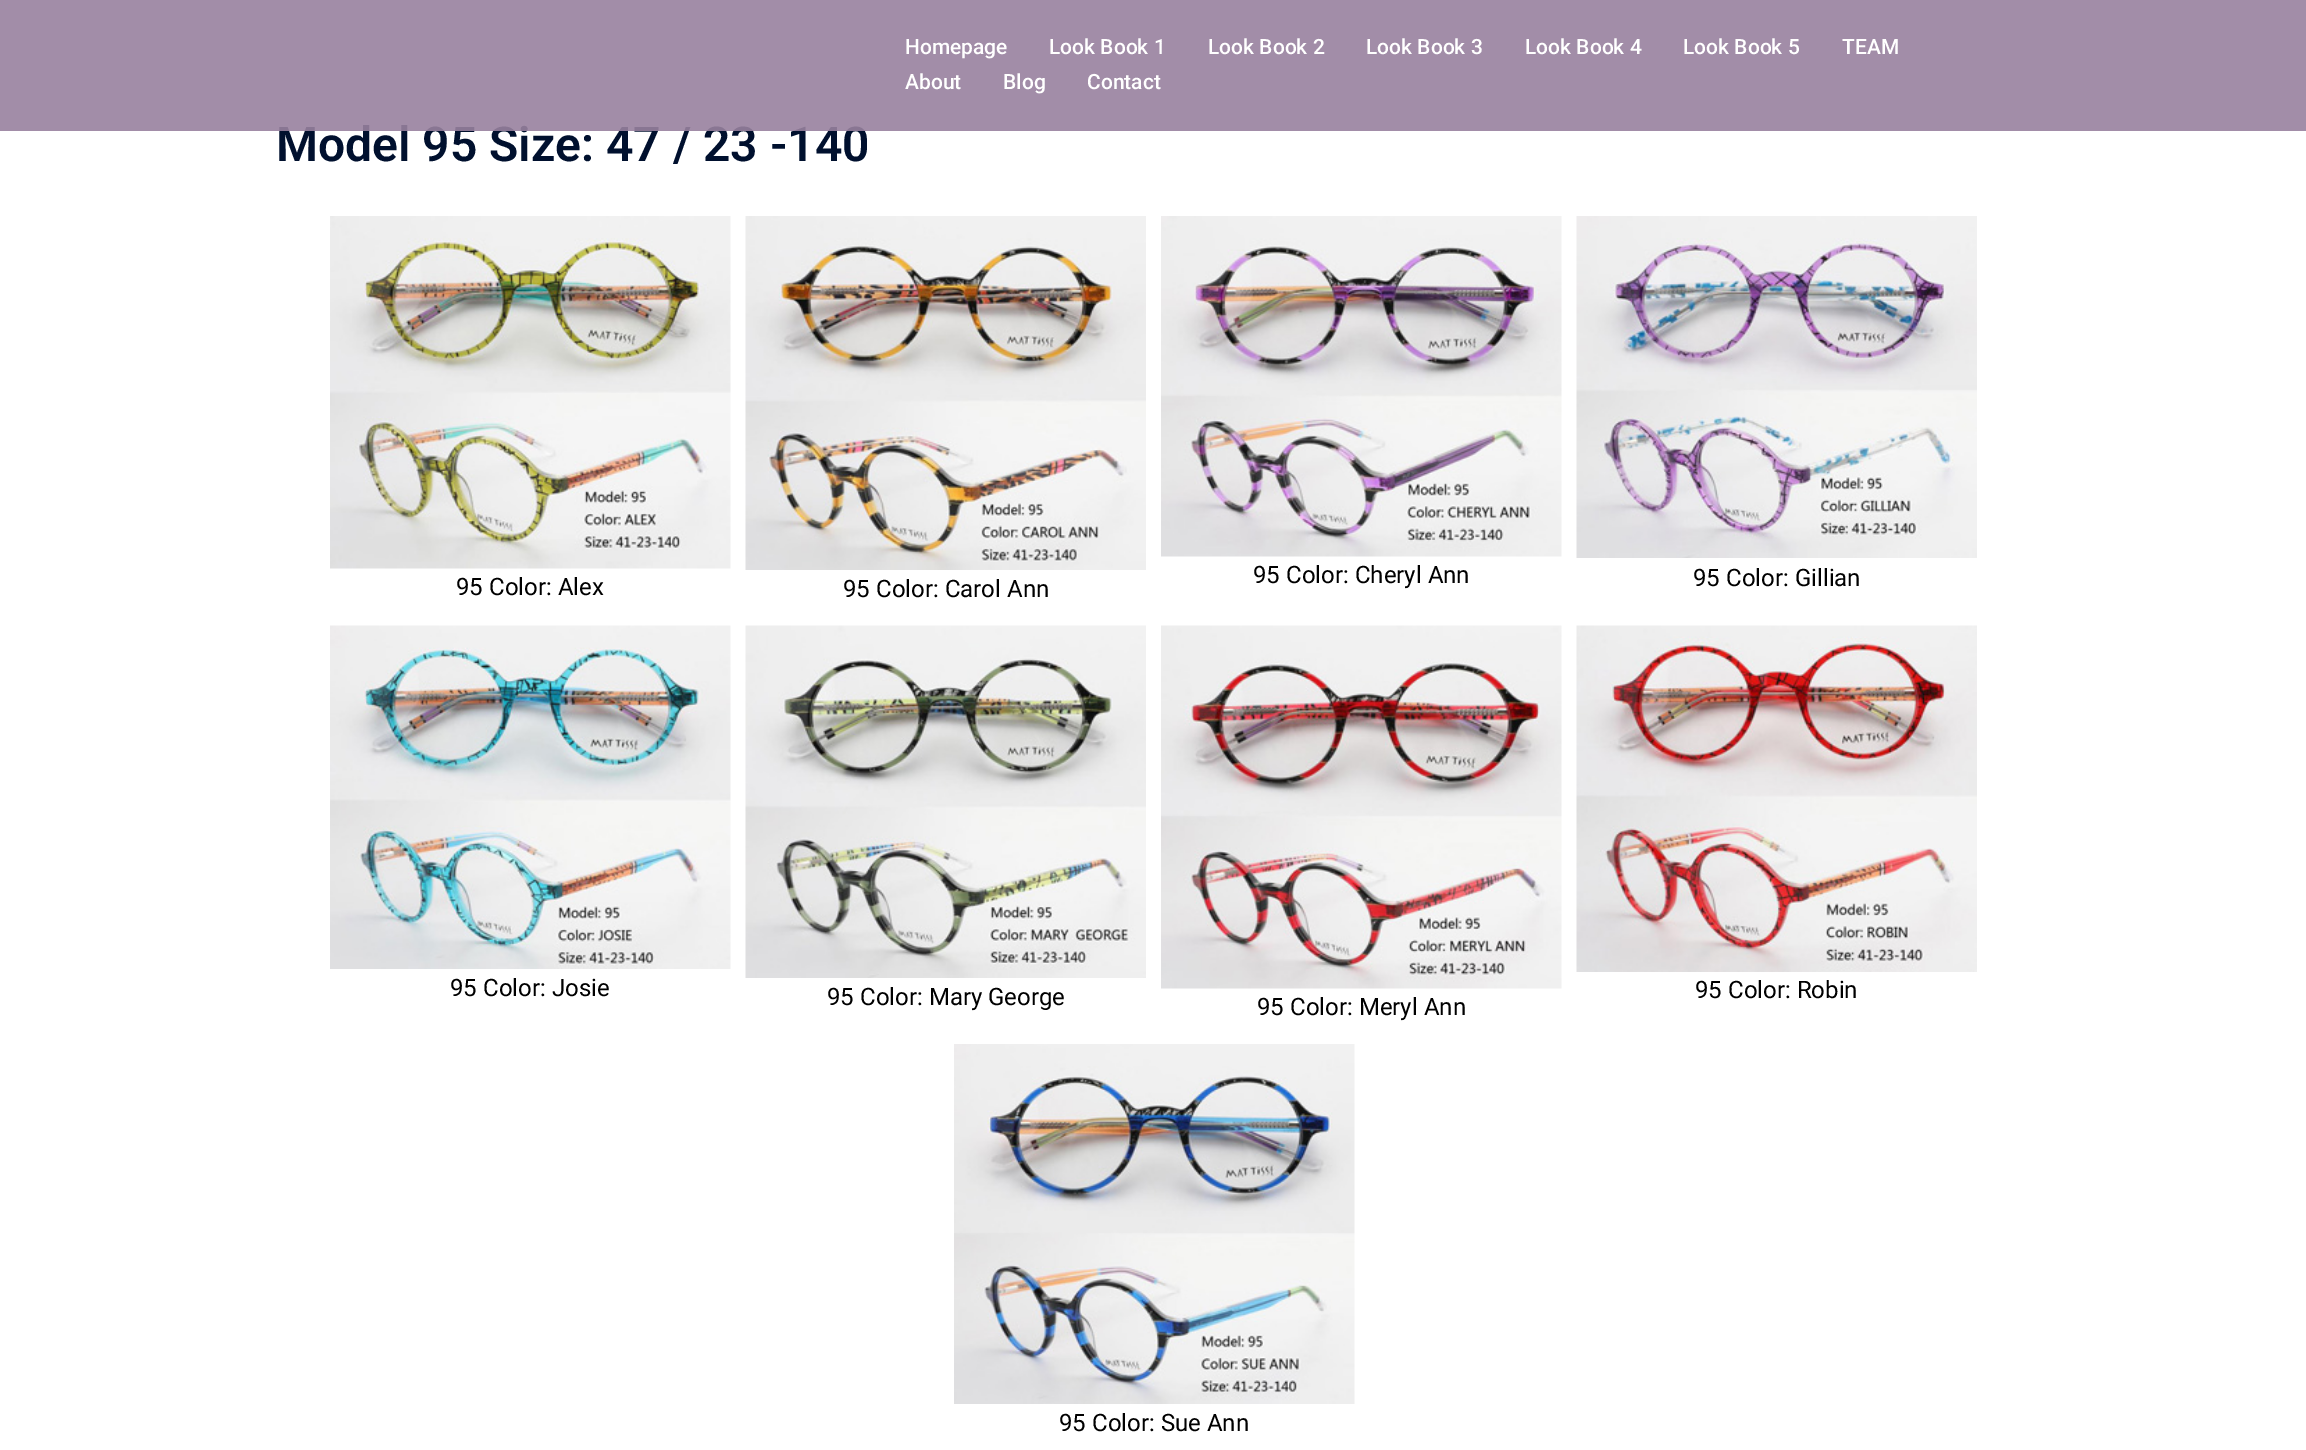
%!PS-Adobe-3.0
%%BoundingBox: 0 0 2306 1450
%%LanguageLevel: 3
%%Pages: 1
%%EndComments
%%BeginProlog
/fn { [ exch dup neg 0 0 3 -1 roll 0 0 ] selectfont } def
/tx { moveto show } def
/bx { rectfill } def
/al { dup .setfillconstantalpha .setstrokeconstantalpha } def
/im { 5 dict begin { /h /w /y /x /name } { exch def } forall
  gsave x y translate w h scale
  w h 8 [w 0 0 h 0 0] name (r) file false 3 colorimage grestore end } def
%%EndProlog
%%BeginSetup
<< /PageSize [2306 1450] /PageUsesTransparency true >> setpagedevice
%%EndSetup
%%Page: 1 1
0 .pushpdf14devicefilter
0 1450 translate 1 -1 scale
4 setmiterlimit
1 setgray
0 0 2306 1450 bx
/Roboto-SemiBold 48 fn
0 0.063 0.18 setrgbcolor
(Model 95 Size: 47 / 23 -140) 276 161 tx
0.9 al
0.596 0.506 0.62 setrgbcolor
0 0 2306 131 bx
/Roboto-Medium 21 fn
1 al
1 setgray
(Homepage) 905 54 tx
(Look Book 1) 1049 54 tx
(Look Book 2) 1208 54 tx
(Look Book 3) 1366 54 tx
(Look Book 4) 1525 54 tx
(Look Book 5) 1683 54 tx
(TEAM) 1842 54 tx
(About) 905 89 tx
(Blog) 1003 89 tx
(Contact) 1087 89 tx
(image0.raw) 330 216 401 353 im
/Roboto-Regular 24 fn
0 setgray
(95 Color: Alex) 456 595 tx
(image1.raw) 745 216 401 354 im
(95 Color: Carol Ann) 843 597 tx
(image2.raw) 1161 216 401 341 im
(95 Color: Cheryl Ann) 1253 583 tx
(image3.raw) 1576 216 401 342 im
(95 Color: Gillian) 1693 586 tx
(image4.raw) 330 625 401 344 im
(95 Color: Josie) 450 996 tx
(image5.raw) 745 625 401 353 im
(95 Color: Mary George) 827 1005 tx
(image6.raw) 1161 625 401 364 im
(95 Color: Meryl Ann) 1257 1015 tx
(image7.raw) 1576 625 401 347 im
(95 Color: Robin) 1695 998 tx
(image8.raw) 954 1044 401 360 im
(95 Color: Sue Ann) 1059 1431 tx
.poppdf14devicefilter showpage
%%EOF
